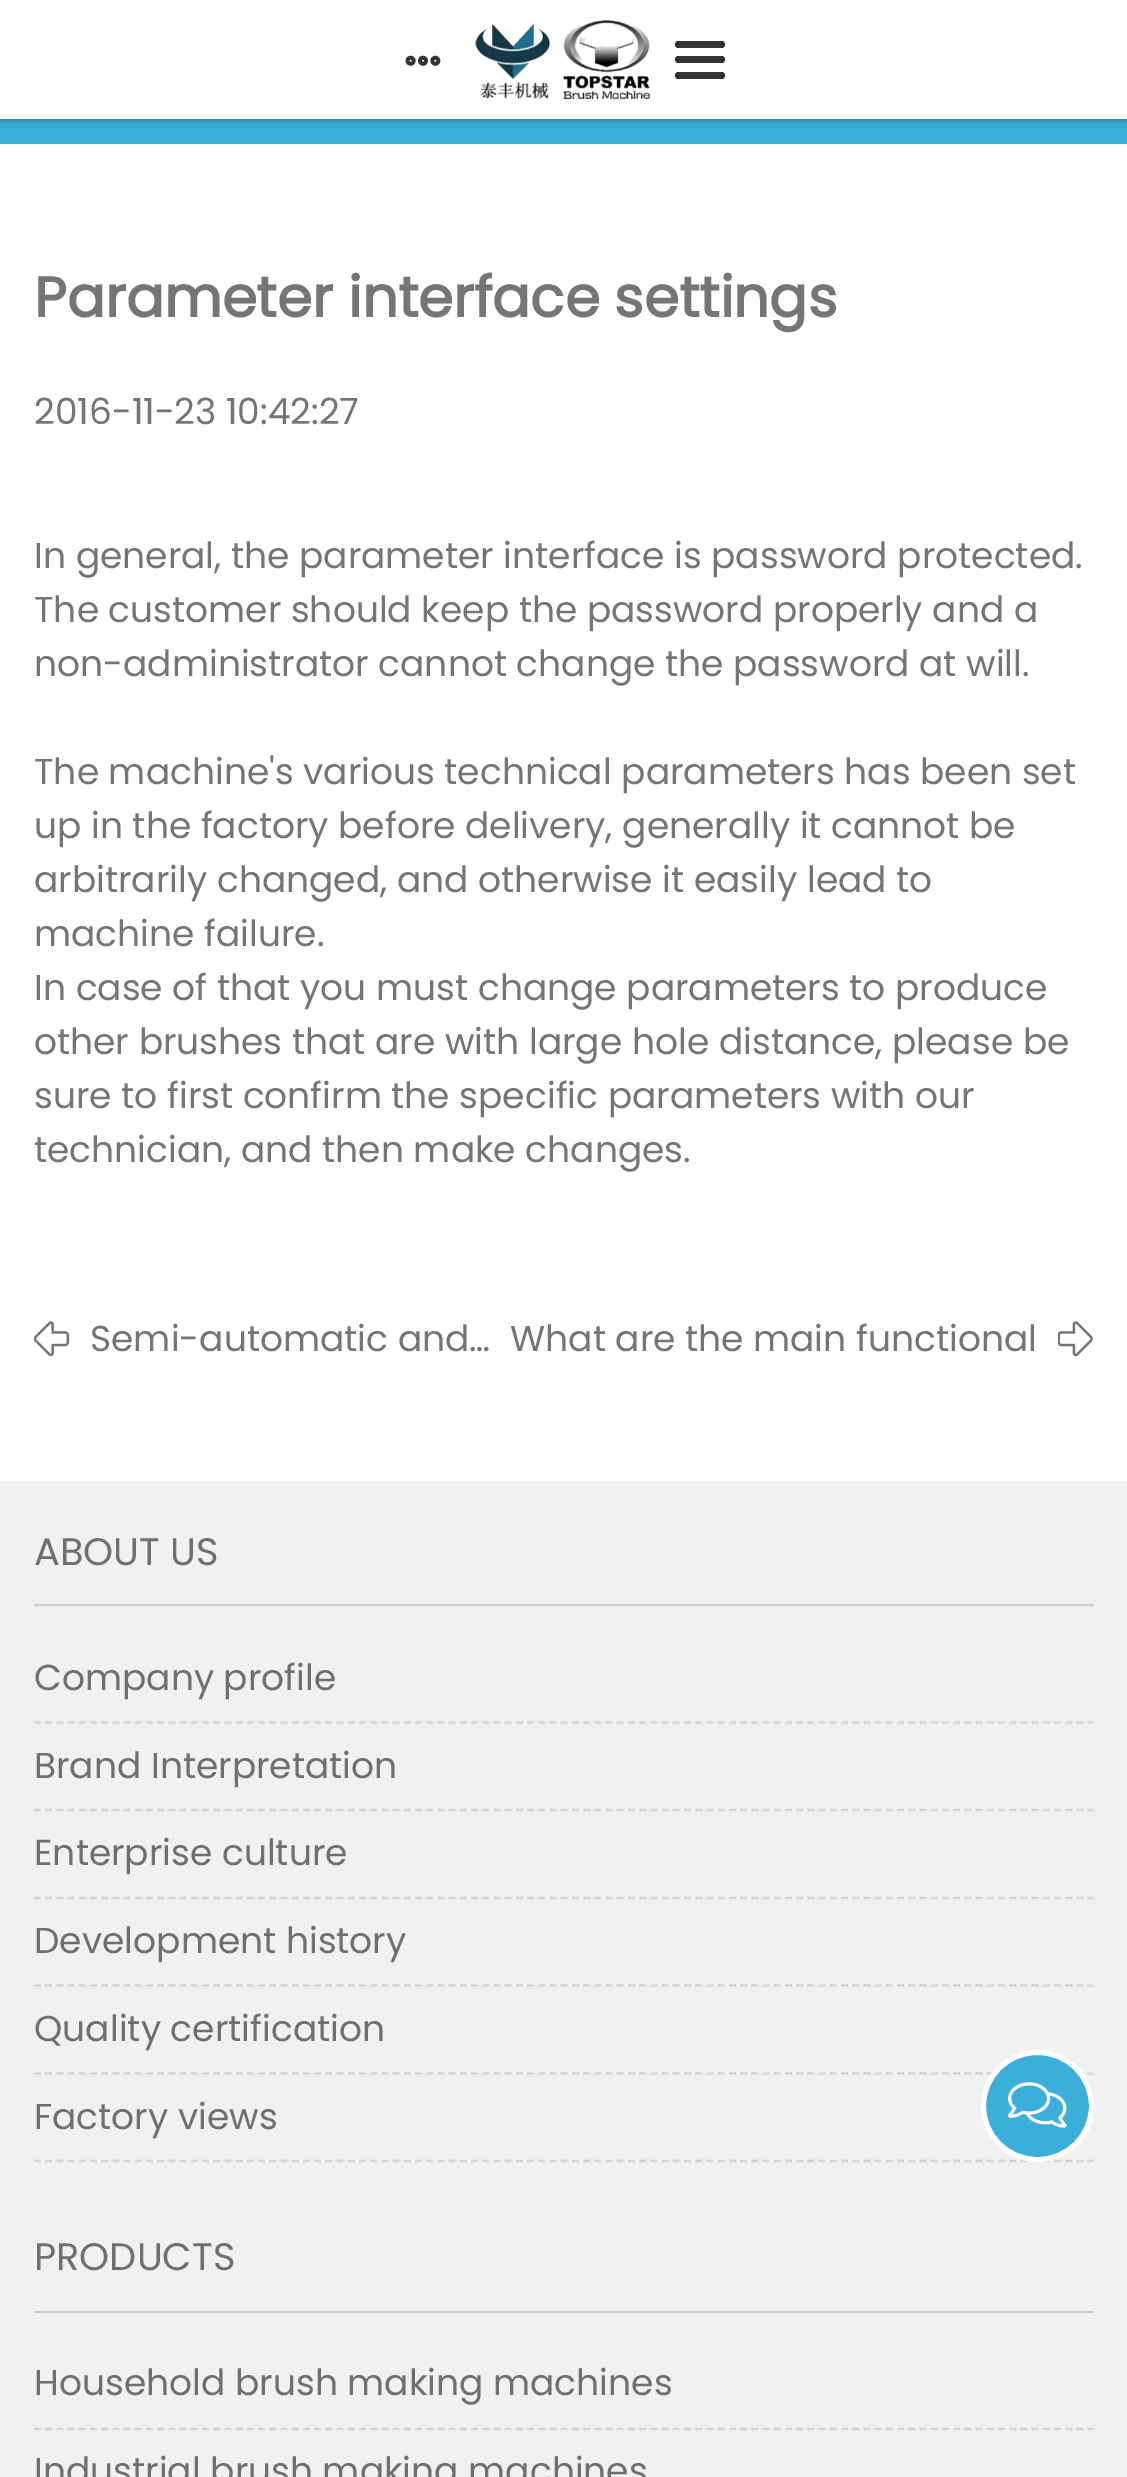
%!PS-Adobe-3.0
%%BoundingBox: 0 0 1127 2477
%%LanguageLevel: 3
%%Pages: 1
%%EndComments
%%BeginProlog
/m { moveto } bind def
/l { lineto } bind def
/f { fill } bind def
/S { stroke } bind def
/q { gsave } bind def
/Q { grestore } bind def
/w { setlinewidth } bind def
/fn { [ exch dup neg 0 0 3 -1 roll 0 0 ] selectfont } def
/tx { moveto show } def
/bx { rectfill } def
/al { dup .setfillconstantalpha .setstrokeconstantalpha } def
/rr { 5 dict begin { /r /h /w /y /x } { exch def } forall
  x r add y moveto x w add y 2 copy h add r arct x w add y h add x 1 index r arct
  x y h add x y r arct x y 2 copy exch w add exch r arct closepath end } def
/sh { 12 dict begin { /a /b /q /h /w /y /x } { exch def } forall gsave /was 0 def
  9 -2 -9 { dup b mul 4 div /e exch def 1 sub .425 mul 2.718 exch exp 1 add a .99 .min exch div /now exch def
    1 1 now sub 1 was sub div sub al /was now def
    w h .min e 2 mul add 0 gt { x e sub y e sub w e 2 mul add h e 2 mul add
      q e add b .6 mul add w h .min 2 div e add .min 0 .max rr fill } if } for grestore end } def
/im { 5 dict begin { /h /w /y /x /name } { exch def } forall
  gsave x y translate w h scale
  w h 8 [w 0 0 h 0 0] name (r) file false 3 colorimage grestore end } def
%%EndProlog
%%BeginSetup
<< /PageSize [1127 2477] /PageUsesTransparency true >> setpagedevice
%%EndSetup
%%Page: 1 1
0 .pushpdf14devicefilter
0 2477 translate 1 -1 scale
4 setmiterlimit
1 setgray
0 0 1127 2477 bx
0.231 0.686 0.855 setrgbcolor
0 119 1127 25 bx
0 setgray
0 0 1127 119 0 4.5 0.4 sh
1 setgray
0 0 1127 119 bx
(image0.raw) 405 55 36 11 im
(image1.raw) 474 20 176 80 im
0.2 setgray
675 56 50 7 3.5 rr f
675 41 50 7 3.5 rr f
675 72 50 7 3.5 rr f
/Poppins-Bold 56.25 fn
0.459 setgray
(Parameter interface settings) 34 317 tx
/Poppins-Regular 36 fn
(2016-11-23 10:42:27) 34 424 tx
(In general, the parameter interface is password protected.) 34 568 tx
(The customer should keep the password properly and a) 34 622 tx
(non-administrator cannot change the password at will.) 34 676 tx
(The machine's various technical parameters has been set) 34 784 tx
(up in the factory before delivery, generally it cannot be) 34 838 tx
(arbitrarily changed, and otherwise it easily lead to) 34 892 tx
(machine failure.) 34 946 tx
(In case of that you must change parameters to produce) 34 1000 tx
(other brushes that are with large hole distance, please be) 34 1054 tx
(sure to first confirm the specific parameters with our) 34 1108 tx
(technician, and then make changes.) 34 1162 tx
(image2.raw) 34 1321 36 36 im
(Semi-automatic and…) 90 1351 tx
(What are the main functional) 510 1351 tx
(image3.raw) 1058 1321 35 36 im
0.945 setgray
0 1481 1127 996 bx
0.804 setgray
34 1604 1060 2 bx
/Poppins-Regular 38.25 fn
0.435 setgray
(ABOUT US) 34 1565 tx
0.831 setgray
2.2 w
[6.75 4.46] 0 setdash
34 1722.5 m 1093.5 1722.5 l S
/Poppins-Regular 36 fn
0.435 setgray
(Company profile) 34 1690 tx
0.831 setgray
34 1810 m 1093.5 1810 l S
0.435 setgray
(Brand Interpretation) 34 1778 tx
0.831 setgray
34 1898 m 1093.5 1898 l S
0.435 setgray
(Enterprise culture) 34 1865 tx
0.831 setgray
34 1985.5 m 1093.5 1985.5 l S
0.435 setgray
(Development history) 34 1953 tx
0.831 setgray
34 2073.5 m 1093.5 2073.5 l S
0.435 setgray
(Quality certification) 34 2041 tx
0.831 setgray
34 2161 m 1093.5 2161 l S
0.435 setgray
(Factory views) 34 2129 tx
0.804 setgray
34 2311 1060 2 bx
/Poppins-Regular 38.25 fn
0.435 setgray
(PRODUCTS) 34 2270 tx
0.831 setgray
34 2429 m 1093.5 2429 l S
/Poppins-Regular 36 fn
0.435 setgray
(Household brush making machines) 34 2395 tx
(Industrial brush making machines) 34 2483 tx
0.231 0.686 0.855 setrgbcolor
983.5 2052.5 108 107 53.5 rr q f Q
1 setgray
5 w
[] 0 setdash
S
(image4.raw) 1008 2082 59 46 im
.poppdf14devicefilter showpage
%%EOF
